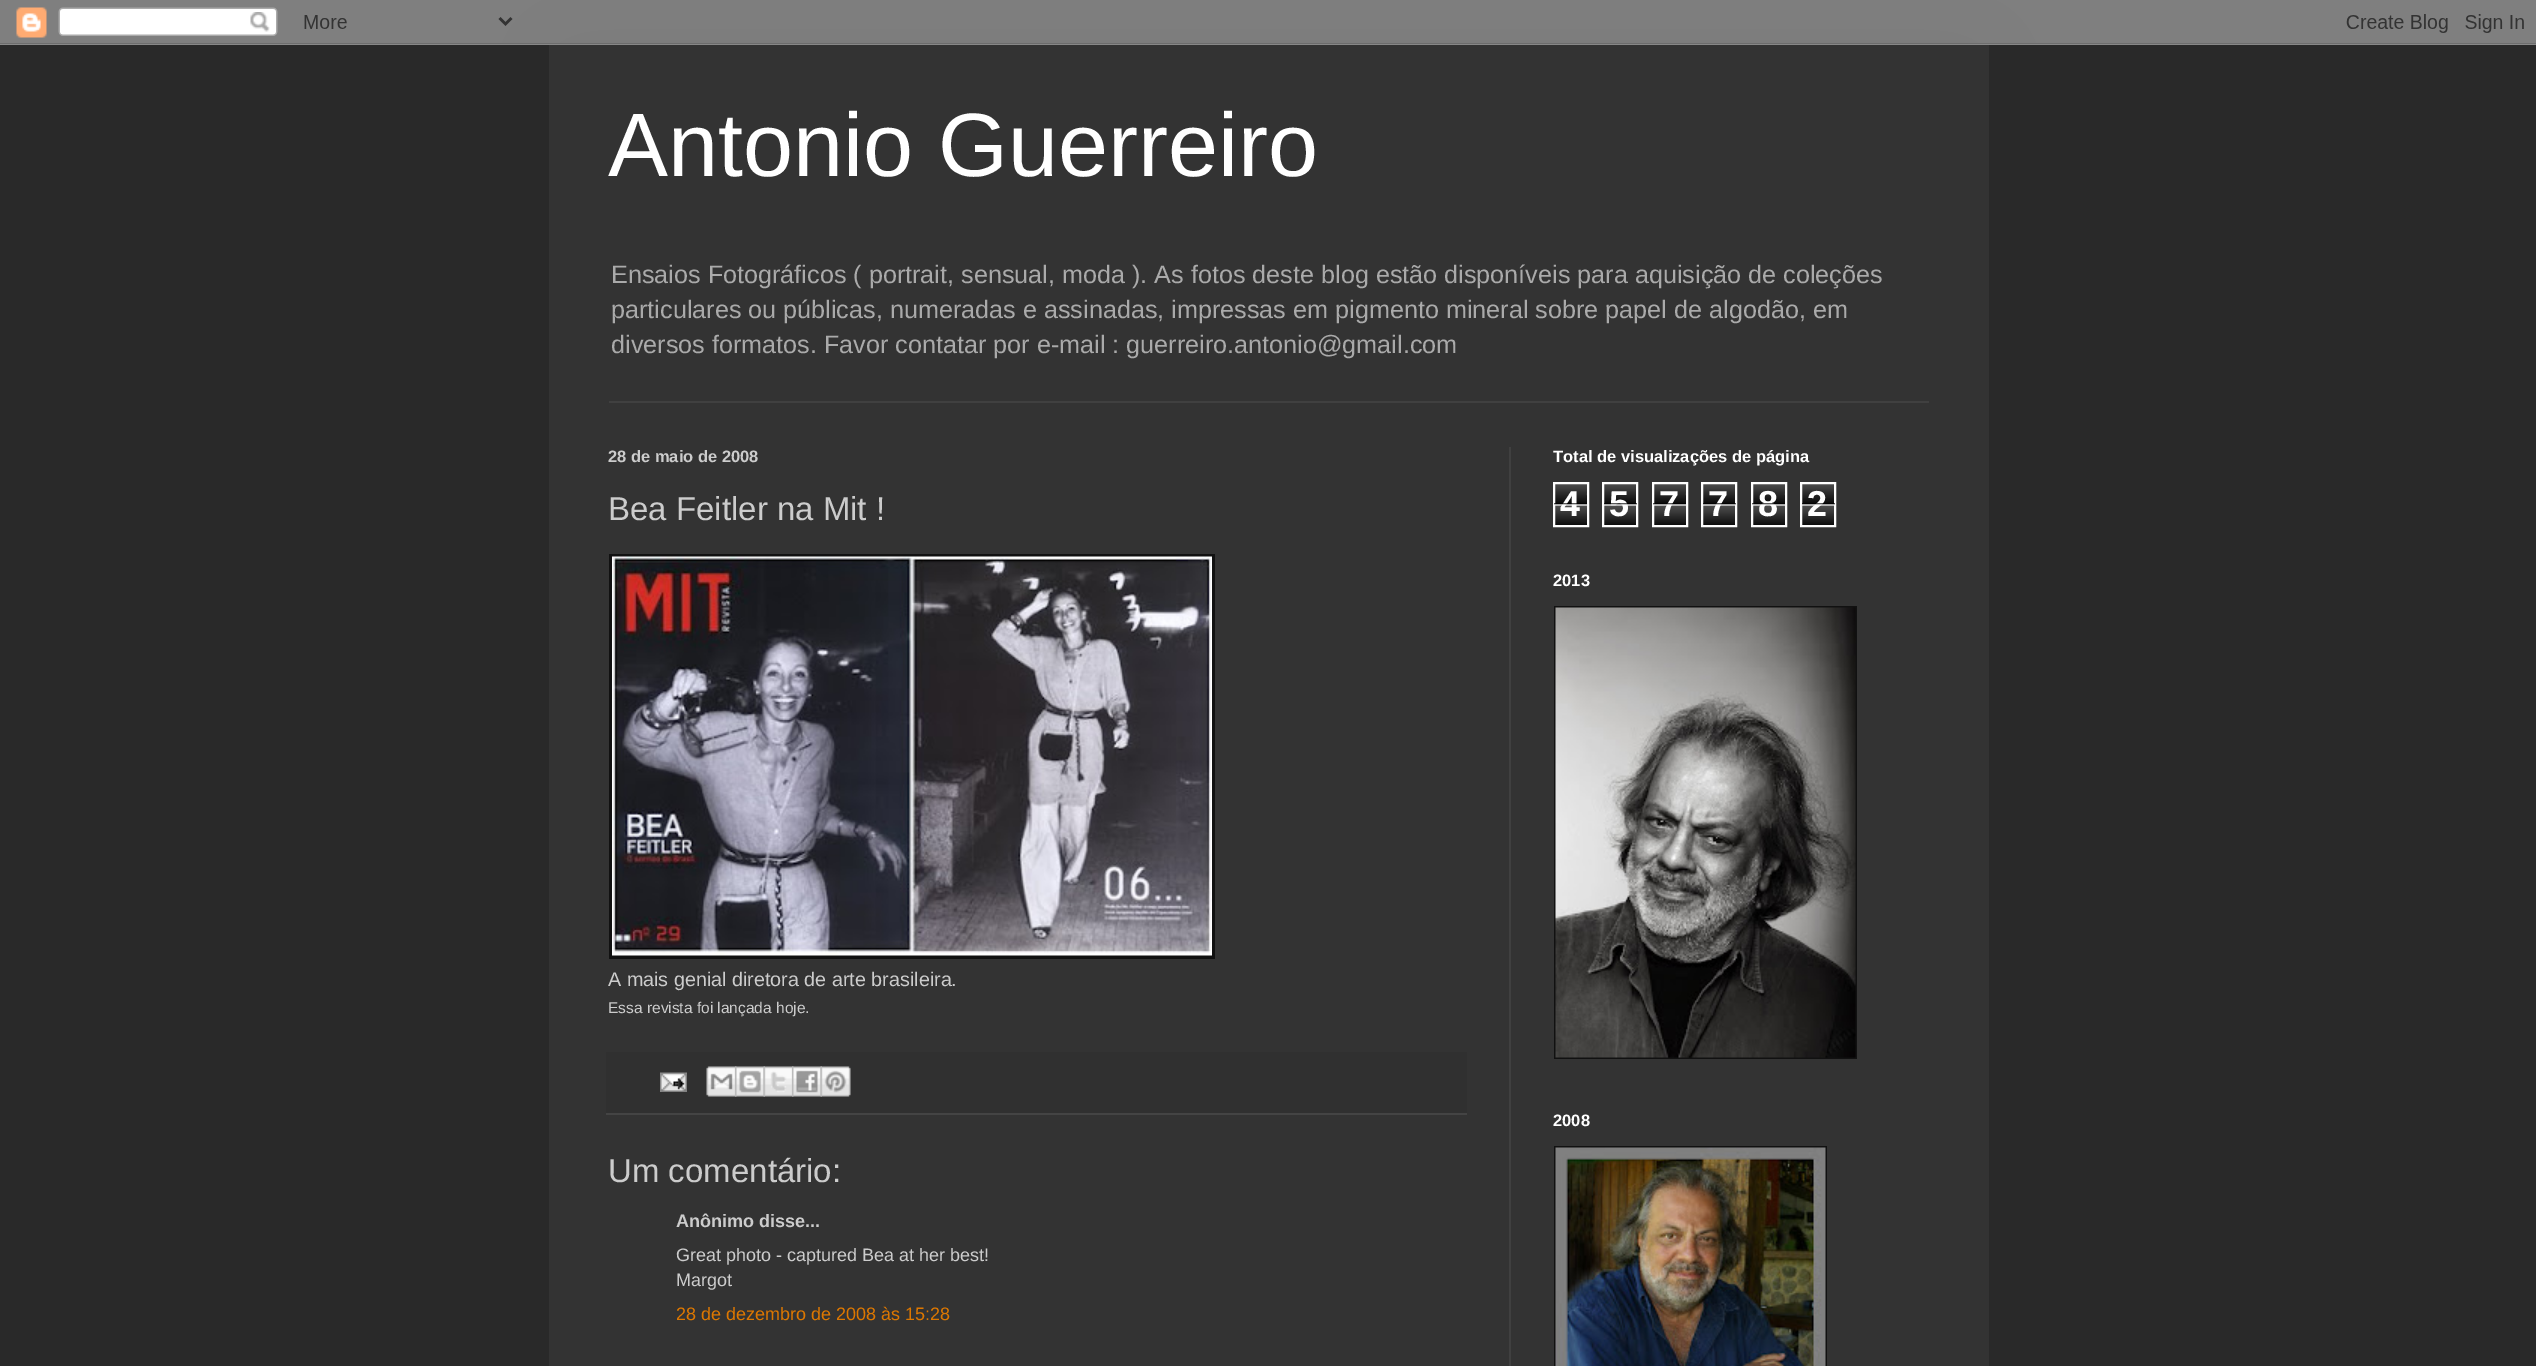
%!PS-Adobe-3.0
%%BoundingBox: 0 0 2536 1366
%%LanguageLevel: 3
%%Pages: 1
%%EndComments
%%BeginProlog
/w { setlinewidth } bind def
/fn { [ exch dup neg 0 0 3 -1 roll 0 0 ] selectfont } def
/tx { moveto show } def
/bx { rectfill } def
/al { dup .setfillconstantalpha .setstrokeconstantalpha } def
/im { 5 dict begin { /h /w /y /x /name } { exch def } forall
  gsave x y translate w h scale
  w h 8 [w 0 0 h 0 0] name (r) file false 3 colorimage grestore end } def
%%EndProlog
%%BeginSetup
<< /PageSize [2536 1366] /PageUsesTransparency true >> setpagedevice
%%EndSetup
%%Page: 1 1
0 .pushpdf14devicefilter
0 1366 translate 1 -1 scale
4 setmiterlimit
0.161 setgray
0 0 2536 1366 bx
(image0.raw) 0 0 2536 45 im
0.2 setgray
549 45 1440 1321 bx
/LiberationSans-Regular 90 fn
1 setgray
(Antonio Guerreiro) 608 176 tx
/LiberationSans-Regular 25.2 fn
0.667 setgray
(Ensaios Fotográficos \( portrait, sensual, moda \). As fotos deste blog estão disponíveis para aquisição de coleções) 611 283 tx
(particulares ou públicas, numeradas e assinadas, impressas em pigmento mineral sobre papel de algodão, em) 611 318 tx
(diversos formatos. Favor contatar por e-mail : guerreiro.antonio@gmail.com) 611 353 tx
0.251 setgray
609 401 1320 2 bx
1509 447 2 919 bx
/LiberationSans-Bold 16.5 fn
0.8 setgray
(28 de maio de 2008) 608 462 tx
/LiberationSans-Regular 33 fn
(Bea Feitler na Mit !) 608 520 tx
0.067 setgray
609 554 606 405 bx
(image1.raw) 612 556 600 400 im
/LiberationSans-Regular 19.75 fn
0.8 setgray
(A mais genial diretora de arte brasileira.) 608 986 tx
/LiberationSans-Regular 15.5 fn
(Essa revista foi lançada hoje.) 608 1013 tx
0.188 setgray
606 1052 861 61 bx
0.267 setgray
606 1113 861 2 bx
(image2.raw) 660 1072 27 20 im
(image3.raw) 706 1066 31 31 im
(image4.raw) 735 1066 30 31 im
(image5.raw) 763 1066 31 31 im
(image6.raw) 792 1066 30 31 im
(image7.raw) 820 1066 31 31 im
/LiberationSans-Regular 33 fn
0.8 setgray
(Um comentário:) 608 1182 tx
/LiberationSans-Bold 18 fn
(Anônimo disse...) 676 1227 tx
/LiberationSans-Regular 18 fn
(Great photo - captured Bea at her best!) 676 1261 tx
(Margot) 676 1286 tx
0.867 0.467 0 setrgbcolor
(28 de dezembro de 2008 às 15:28) 676 1320 tx
/LiberationSans-Bold 16.5 fn
1 setgray
(Total de visualizações de página) 1553 462 tx
(image8.raw) 1555 484 32 41 im
2 w
1554 483 34 43 rectstroke
/LiberationSans-Bold 36 fn
(4) 1560 516 tx
0.65 al
0 setgray
1554 503 33 2 bx
1 setgray
1554 504 33 2 bx
1 al
(image9.raw) 1604 484 32 41 im
1603 483 34 43 rectstroke
(5) 1609 516 tx
0.65 al
0 setgray
1604 503 33 2 bx
1 setgray
1604 504 33 2 bx
1 al
(image8.raw) 1654 484 32 41 im
1653 483 34 43 rectstroke
(7) 1659 516 tx
0.65 al
0 setgray
1653 503 33 2 bx
1 setgray
1653 504 33 2 bx
1 al
(image9.raw) 1703 484 32 41 im
1702 483 34 43 rectstroke
(7) 1708 516 tx
0.65 al
0 setgray
1703 503 33 2 bx
1 setgray
1703 504 33 2 bx
1 al
(image8.raw) 1753 484 32 41 im
1752 483 34 43 rectstroke
(8) 1758 516 tx
0.65 al
0 setgray
1752 503 33 2 bx
1 setgray
1752 504 33 2 bx
1 al
(image9.raw) 1802 484 32 41 im
1801 483 34 43 rectstroke
(2) 1807 516 tx
0.65 al
0 setgray
1802 503 33 2 bx
1 setgray
1802 504 33 2 bx
/LiberationSans-Bold 16.5 fn
1 al
(2013) 1553 586 tx
0.067 setgray
1554 606 303 453 bx
(image10.raw) 1555 607 301 451 im
1 setgray
(2008) 1553 1126 tx
0.067 setgray
1554 1146 273 220 bx
(image11.raw) 1555 1147 271 219 im
.poppdf14devicefilter showpage
%%EOF
